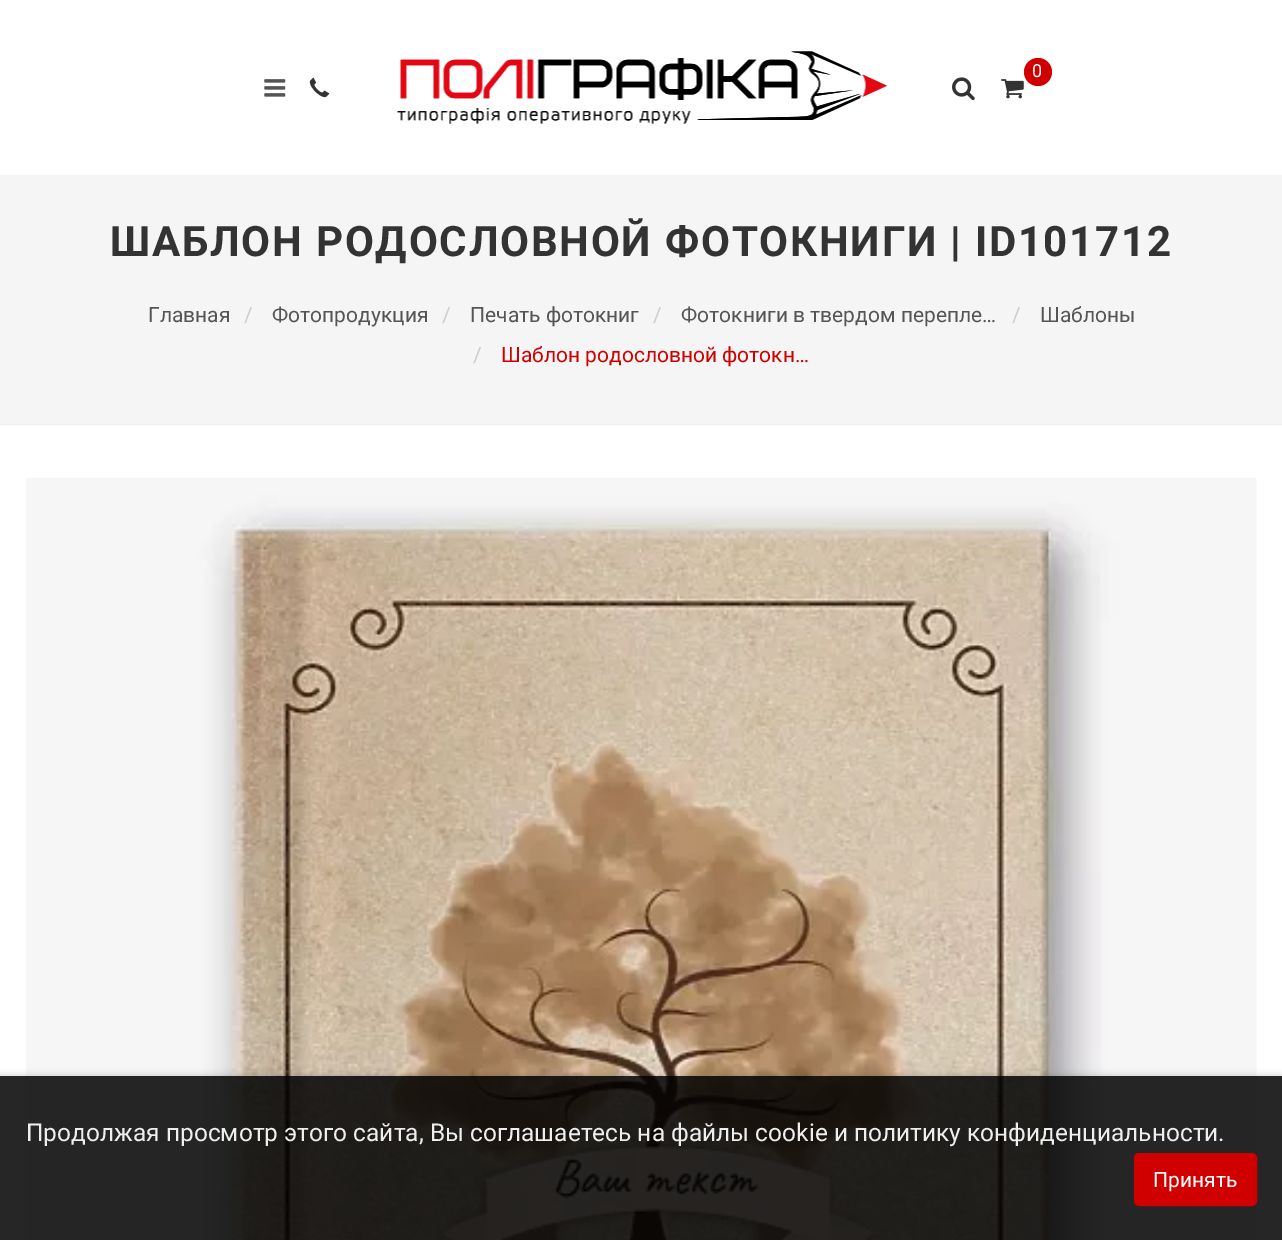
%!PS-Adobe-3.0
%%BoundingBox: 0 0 1282 1240
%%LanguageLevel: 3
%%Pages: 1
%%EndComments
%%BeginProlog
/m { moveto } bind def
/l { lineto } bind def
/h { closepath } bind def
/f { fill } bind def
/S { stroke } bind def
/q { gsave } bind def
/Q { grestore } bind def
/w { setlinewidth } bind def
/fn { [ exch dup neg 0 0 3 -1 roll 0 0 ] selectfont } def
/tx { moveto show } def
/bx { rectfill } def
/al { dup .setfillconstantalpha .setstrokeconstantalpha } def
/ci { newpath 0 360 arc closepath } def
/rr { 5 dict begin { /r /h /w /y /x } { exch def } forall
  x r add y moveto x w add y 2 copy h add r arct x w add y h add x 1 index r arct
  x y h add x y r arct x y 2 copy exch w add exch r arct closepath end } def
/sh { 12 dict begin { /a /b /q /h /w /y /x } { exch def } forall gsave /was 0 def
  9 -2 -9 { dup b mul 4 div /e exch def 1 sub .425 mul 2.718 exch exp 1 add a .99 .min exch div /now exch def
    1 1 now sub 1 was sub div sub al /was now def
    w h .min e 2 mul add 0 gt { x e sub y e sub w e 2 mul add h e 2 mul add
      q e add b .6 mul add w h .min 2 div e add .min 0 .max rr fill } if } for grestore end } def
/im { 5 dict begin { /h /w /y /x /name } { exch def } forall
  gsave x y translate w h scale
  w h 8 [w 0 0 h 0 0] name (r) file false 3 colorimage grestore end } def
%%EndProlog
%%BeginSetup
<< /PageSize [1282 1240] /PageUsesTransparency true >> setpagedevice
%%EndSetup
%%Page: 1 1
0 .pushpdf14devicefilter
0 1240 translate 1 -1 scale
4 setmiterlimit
1 setgray
0 0 1282 1240 bx
(image0.raw) 397 51 491 73 im
0.816 0 0 setrgbcolor
1038 72 14 ci f
/Roboto-Regular 18 fn
1 setgray
(0) 1032 77 tx
(image1.raw) 1001 79 23 20 im
(image2.raw) 309 77 21 21 im
(image3.raw) 952 77 23 24 im
(image4.raw) 264 79 22 18 im
0.961 setgray
0 175 1282 249 bx
0.933 setgray
0 424 1282 1 bx
/Roboto-Bold 42 fn
0.2 setgray
110 256 m 1.75 0 (ШАБЛОН РОДОСЛОВНОЙ ФОТОКНИГИ | ID101712) ashow
/Roboto-Regular 21 fn
0.333 setgray
(Главная) 148 322 tx
0.8 setgray
(/) 244 322 tx
0.333 setgray
(Фотопродукция) 272 322 tx
0.8 setgray
(/) 442 322 tx
0.333 setgray
(Печать фотокниг) 470 322 tx
0.8 setgray
(/) 653 322 tx
0.333 setgray
(Фотокниги в твердом перепле…) 681 322 tx
0.8 setgray
(/) 1012 322 tx
0.333 setgray
(Шаблоны) 1040 322 tx
0.8 setgray
(/) 473 362 tx
0.816 0 0 setrgbcolor
(Шаблон родословной фотокн…) 501 362 tx
(image5.raw) 26 478 1231 762 im
q
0 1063 m 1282 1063 l 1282 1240 l 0 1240 l h 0 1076 m 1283 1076 l 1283 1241 l 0 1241 l h eoclip newpath
0 setgray
0 1075 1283 164 0 3.5 0.15 sh
Q
0.85 al
0 setgray
0 1076 1282 164 bx
/Roboto-Regular 24.5 fn
1 al
0.933 setgray
(Продолжая просмотр этого сайта, Вы соглашаетесь на файлы cookie и политику конфиденциальности.) 26 1141 tx
0.816 0 0 setrgbcolor
1135 1154 121 51 4 rr q f Q
2 w
S
/Roboto-Regular 21 fn
1 setgray
(Принять) 1153 1187 tx
.poppdf14devicefilter showpage
%%EOF
